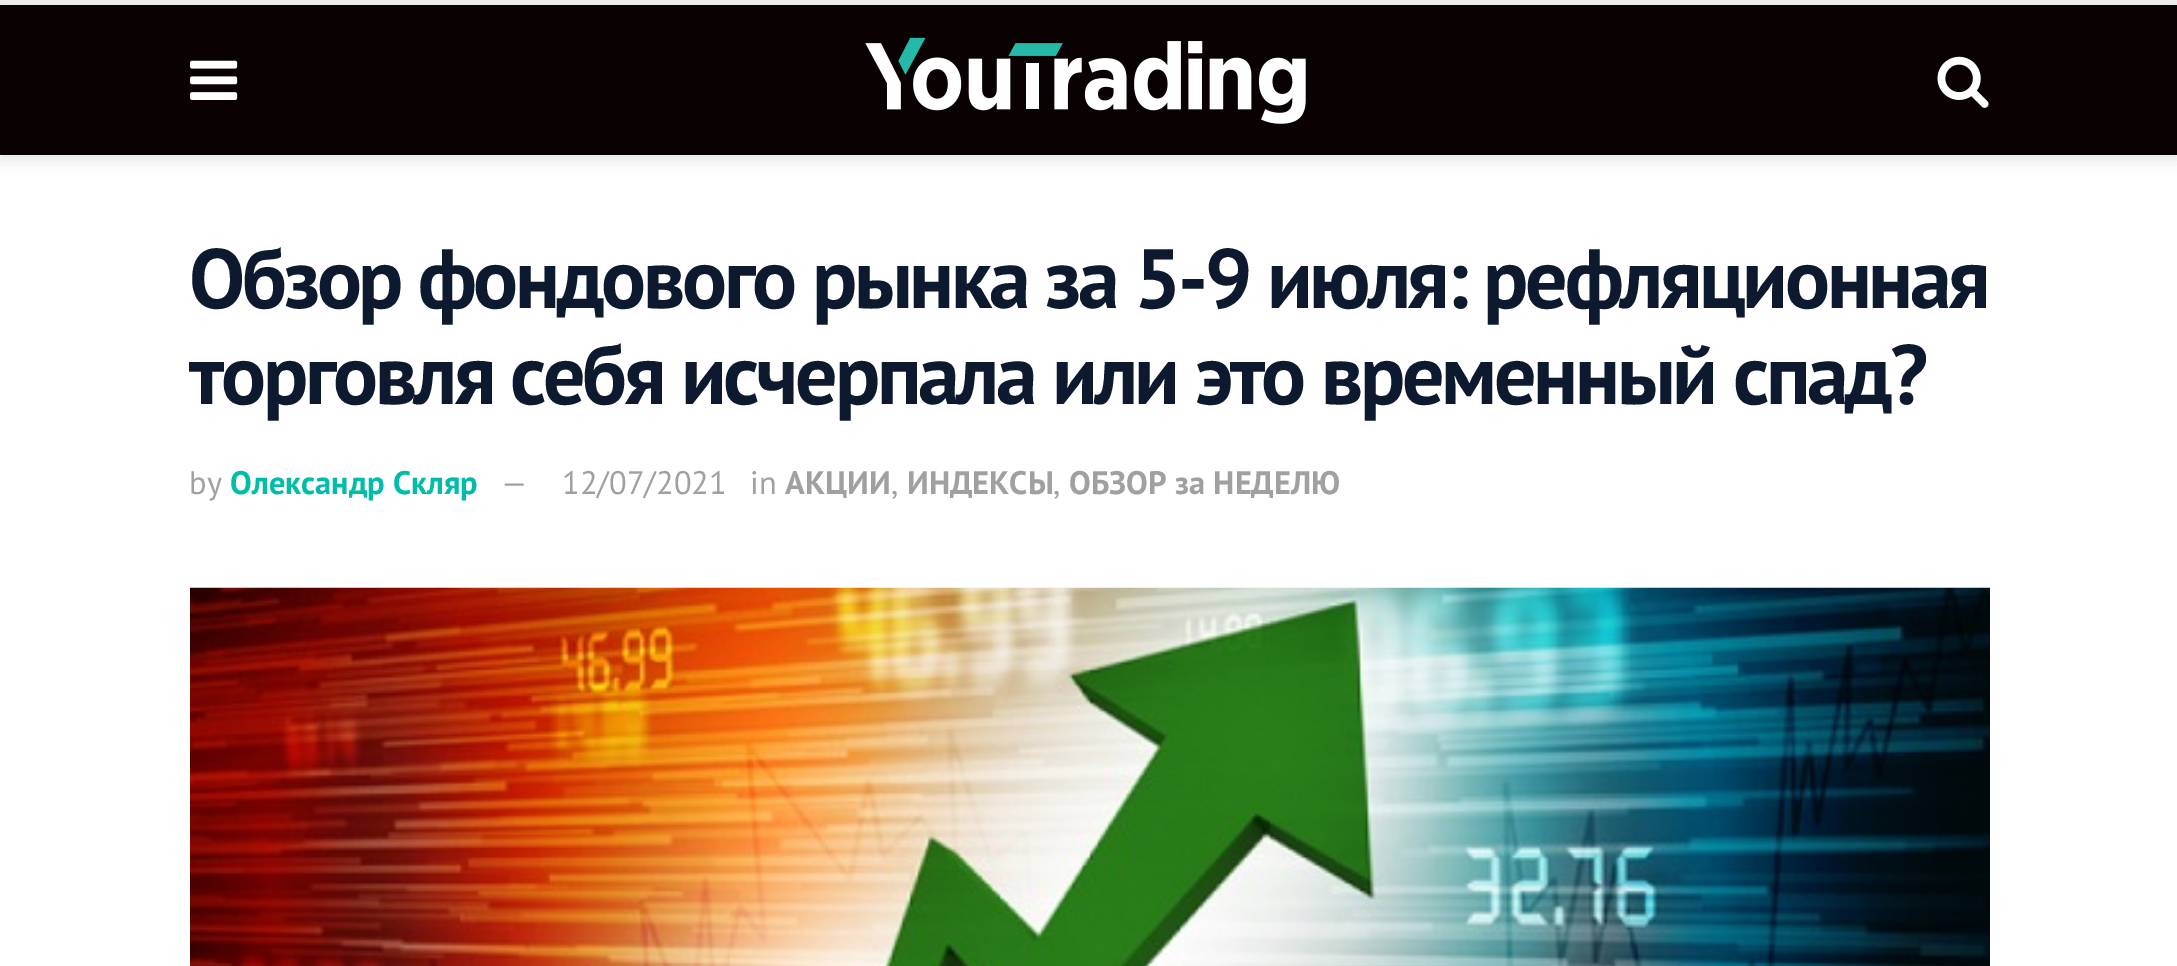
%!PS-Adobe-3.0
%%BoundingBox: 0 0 2177 966
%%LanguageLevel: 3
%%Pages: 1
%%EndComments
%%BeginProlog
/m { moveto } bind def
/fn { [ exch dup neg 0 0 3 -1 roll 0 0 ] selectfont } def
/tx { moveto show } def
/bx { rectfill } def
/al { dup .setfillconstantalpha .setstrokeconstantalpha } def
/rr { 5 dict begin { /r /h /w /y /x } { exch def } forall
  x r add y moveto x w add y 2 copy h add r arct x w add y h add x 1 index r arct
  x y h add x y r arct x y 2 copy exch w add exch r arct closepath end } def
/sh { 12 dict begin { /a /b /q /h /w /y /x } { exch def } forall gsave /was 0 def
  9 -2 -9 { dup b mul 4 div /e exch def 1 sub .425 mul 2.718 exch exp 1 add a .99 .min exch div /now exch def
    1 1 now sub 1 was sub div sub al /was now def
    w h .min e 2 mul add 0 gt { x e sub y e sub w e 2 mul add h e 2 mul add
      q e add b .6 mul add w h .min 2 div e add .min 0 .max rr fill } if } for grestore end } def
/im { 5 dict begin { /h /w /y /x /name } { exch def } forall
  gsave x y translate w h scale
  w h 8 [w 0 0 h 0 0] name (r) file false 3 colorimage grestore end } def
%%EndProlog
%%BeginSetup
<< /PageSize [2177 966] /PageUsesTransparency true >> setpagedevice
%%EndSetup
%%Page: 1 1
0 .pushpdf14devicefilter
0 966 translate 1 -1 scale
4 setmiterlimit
1 setgray
0 0 2177 966 bx
0.941 setgray
0 0 2177 5 bx
0 setgray
0 10 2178 150 0 7.5 0.1 sh
0.039 0.008 0.008 setrgbcolor
0 5 2177 150 bx
(image0.raw) 190 60 48 40 im
(image1.raw) 865 37 441 87 im
(image2.raw) 1937 56 52 52 im
/PTSans-Bold 84 fn
0.047 0.098 0.18 setrgbcolor
189 308 m -0.25 0 32 -3.35 0 (Обзор фондового рынка за 5-9 июля: рефляционная) awidthshow
189 404 m -0.25 0 32 -3.35 0 (торговля себя исчерпала или это временный спад?) awidthshow
/PTSans-Regular 32.5 fn
0.627 setgray
(by) 189 494 tx
/PTSans-Bold 32.5 fn
0 0.741 0.663 setrgbcolor
(Олександр Скляр) 230 494 tx
/PTSans-Regular 32.5 fn
0.627 setgray
(—) 501 494 tx
(12/07/2021) 562 494 tx
(in) 750 494 tx
/PTSans-Bold 32.5 fn
(АКЦИИ) 785 494 tx
/PTSans-Regular 32.5 fn
(,) 891 494 tx
/PTSans-Bold 32.5 fn
(ИНДЕКСЫ) 907 494 tx
/PTSans-Regular 32.5 fn
(,) 1053 494 tx
/PTSans-Bold 32.5 fn
(ОБЗОР за НЕДЕЛЮ) 1069 494 tx
(image4.raw) 1442 587 341 1 im
(image3.raw) 190 587 1800 379 im
.poppdf14devicefilter showpage
%%EOF
